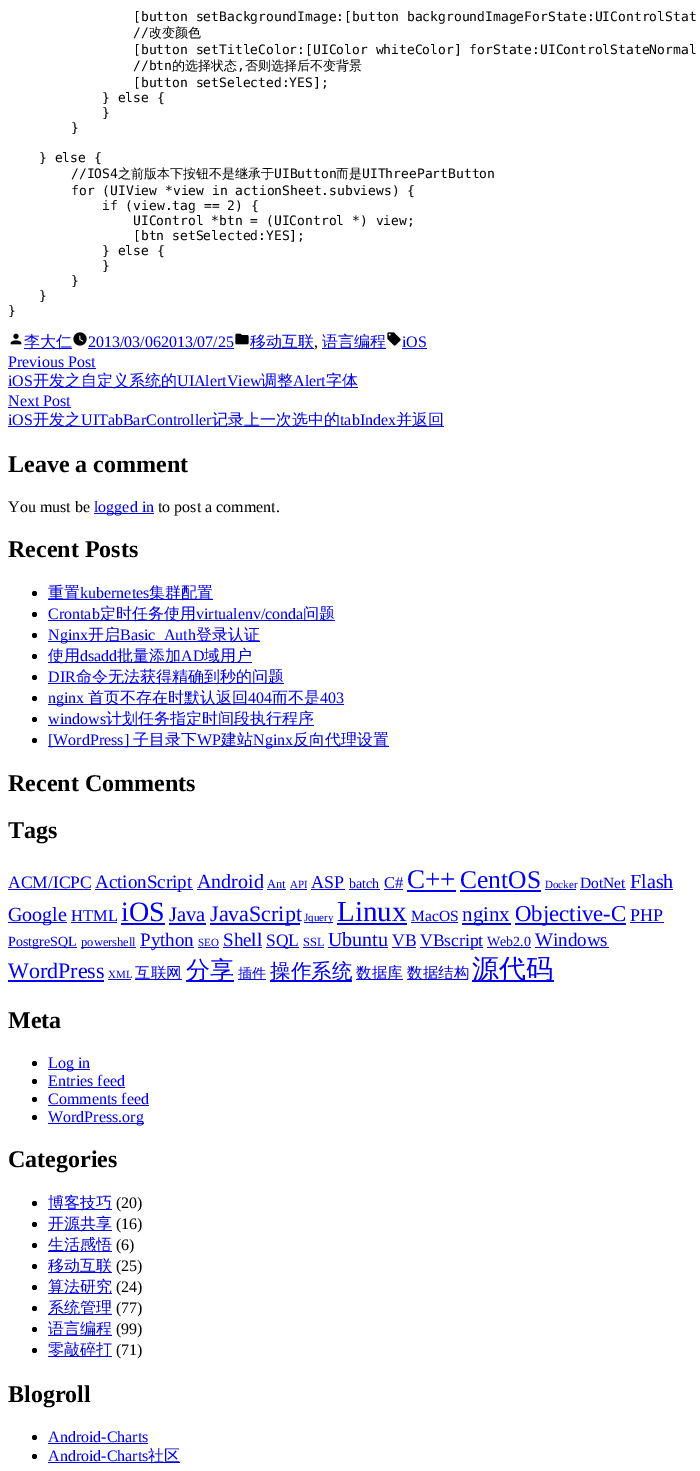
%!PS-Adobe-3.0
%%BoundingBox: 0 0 700 1471
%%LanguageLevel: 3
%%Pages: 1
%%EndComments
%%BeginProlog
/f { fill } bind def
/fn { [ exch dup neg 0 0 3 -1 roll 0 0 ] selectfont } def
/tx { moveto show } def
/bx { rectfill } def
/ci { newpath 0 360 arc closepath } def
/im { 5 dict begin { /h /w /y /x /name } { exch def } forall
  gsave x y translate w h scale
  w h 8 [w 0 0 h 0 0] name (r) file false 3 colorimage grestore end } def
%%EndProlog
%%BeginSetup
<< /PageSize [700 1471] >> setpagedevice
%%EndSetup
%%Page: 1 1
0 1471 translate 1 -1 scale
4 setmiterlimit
1 setgray
0 0 700 1471 bx
/DejaVuSansMono-Regular 13 fn
0 setgray
([button setBackgroundImage:[button backgroundImageForState:UIControlStat) 133 21 tx
(//) 133 37 tx
/WenQuanYiZenHei-Medium 13 fn
(改变颜色) 149 37 tx
/DejaVuSansMono-Regular 13 fn
([button setTitleColor:[UIColor whiteColor] forState:UIControlStateNormal) 133 54 tx
(//btn) 133 70 tx
/WenQuanYiZenHei-Medium 13 fn
(的选择状态) 172 70 tx
/DejaVuSansMono-Regular 13 fn
(,) 237 70 tx
/WenQuanYiZenHei-Medium 13 fn
(否则选择后不变背景) 245 70 tx
/DejaVuSansMono-Regular 13 fn
([button setSelected:YES];) 133 87 tx
(} else {) 102 102 tx
(}) 102 117 tx
(}) 71 132 tx
(} else {) 39 162 tx
(//IOS4) 71 178 tx
/WenQuanYiZenHei-Medium 13 fn
(之前版本下按钮不是继承于) 118 178 tx
/DejaVuSansMono-Regular 13 fn
(UIButton) 274 178 tx
/WenQuanYiZenHei-Medium 13 fn
(而是) 336 178 tx
/DejaVuSansMono-Regular 13 fn
(UIThreePartButton) 362 178 tx
(for \(UIView *view in actionSheet.subviews\) {) 71 195 tx
(if \(view.tag == 2\) {) 102 210 tx
(UIControl *btn = \(UIControl *\) view;) 133 225 tx
([btn setSelected:YES];) 133 240 tx
(} else {) 102 255 tx
(}) 102 270 tx
(}) 71 285 tx
(}) 39 300 tx
(}) 8 315 tx
(image0.raw) 10 333 12 12 im
0 0 0.933 setrgbcolor
24 348 48 1 bx
/WenQuanYiZenHei-Medium 16 fn
(李大仁) 24 347 tx
(image1.raw) 73 332 14 14 im
/LiberationSerif-Regular 16 fn
(2013/03/062013/07/25) 88 347 tx
88 348 146 1 bx
(image2.raw) 235 333 14 12 im
250 348 64 1 bx
/WenQuanYiZenHei-Medium 16 fn
(移动互联) 250 347 tx
/LiberationSerif-Regular 16 fn
0 setgray
(,) 314 347 tx
0 0 0.933 setrgbcolor
322 348 64 1 bx
/WenQuanYiZenHei-Medium 16 fn
(语言编程) 322 347 tx
(image3.raw) 387 332 14 14 im
/LiberationSerif-Regular 16 fn
(iOS) 402 347 tx
402 348 25 1 bx
(Previous Post) 8 367 tx
8 368 88 1 bx
(iOS) 8 386 tx
8 387 350 1 bx
/WenQuanYiZenHei-Medium 16 fn
(开发之自定义系统的) 33 386 tx
/LiberationSerif-Regular 16 fn
(UIAlertView) 177 386 tx
/WenQuanYiZenHei-Medium 16 fn
(调整) 261 386 tx
/LiberationSerif-Regular 16 fn
(Alert) 293 386 tx
/WenQuanYiZenHei-Medium 16 fn
(字体) 326 386 tx
/LiberationSerif-Regular 16 fn
(Next Post) 8 406 tx
8 407 63 1 bx
(iOS) 8 425 tx
8 426 436 1 bx
/WenQuanYiZenHei-Medium 16 fn
(开发之) 33 425 tx
/LiberationSerif-Regular 16 fn
(UITabBarController) 81 425 tx
/WenQuanYiZenHei-Medium 16 fn
(记录上一次选中的) 212 425 tx
/LiberationSerif-Regular 16 fn
(tabIndex) 340 425 tx
/WenQuanYiZenHei-Medium 16 fn
(并返回) 396 425 tx
/LiberationSerif-Bold 24 fn
0 setgray
(Leave a comment) 8 472 tx
/LiberationSerif-Regular 16 fn
(You must be) 8 512 tx
0 0 0.933 setrgbcolor
94 513 60 1 bx
(logged in) 94 512 tx
0 setgray
(to post a comment.) 158 512 tx
/LiberationSerif-Bold 24 fn
(Recent Posts) 8 557 tx
34.5 593.5 2.5 ci f
0 0 0.933 setrgbcolor
48 599 165 1 bx
/WenQuanYiZenHei-Medium 16 fn
(重置) 48 598 tx
/LiberationSerif-Regular 16 fn
(kubernetes) 80 598 tx
/WenQuanYiZenHei-Medium 16 fn
(集群配置) 149 598 tx
0 setgray
34.5 614.5 2.5 ci f
/LiberationSerif-Regular 16 fn
0 0 0.933 setrgbcolor
(Crontab) 48 619 tx
48 620 287 1 bx
/WenQuanYiZenHei-Medium 16 fn
(定时任务使用) 100 619 tx
/LiberationSerif-Regular 16 fn
(virtualenv/conda) 196 619 tx
/WenQuanYiZenHei-Medium 16 fn
(问题) 303 619 tx
0 setgray
34.5 635.5 2.5 ci f
0 0 0.933 setrgbcolor
48 641 212 1 bx
/LiberationSerif-Regular 16 fn
(Nginx) 48 640 tx
/WenQuanYiZenHei-Medium 16 fn
(开启) 88 640 tx
/LiberationSerif-Regular 16 fn
(Basic_Auth) 120 640 tx
/WenQuanYiZenHei-Medium 16 fn
(登录认证) 196 640 tx
0 setgray
34.5 656.5 2.5 ci f
0 0 0.933 setrgbcolor
48 662 204 1 bx
(使用) 48 661 tx
/LiberationSerif-Regular 16 fn
(dsadd) 80 661 tx
/WenQuanYiZenHei-Medium 16 fn
(批量添加) 117 661 tx
/LiberationSerif-Regular 16 fn
(AD) 181 661 tx
/WenQuanYiZenHei-Medium 16 fn
(域用户) 204 661 tx
0 setgray
34.5 677.5 2.5 ci f
/LiberationSerif-Regular 16 fn
0 0 0.933 setrgbcolor
(DIR) 48 682 tx
48 683 236 1 bx
/WenQuanYiZenHei-Medium 16 fn
(命令无法获得精确到秒的问题) 76 682 tx
0 setgray
34.5 698.5 2.5 ci f
0 0 0.933 setrgbcolor
48 704 296 1 bx
/LiberationSerif-Regular 16 fn
(nginx) 48 703 tx
/WenQuanYiZenHei-Medium 16 fn
(首页不存在时默认返回) 88 703 tx
/LiberationSerif-Regular 16 fn
(404) 248 703 tx
/WenQuanYiZenHei-Medium 16 fn
(而不是) 272 703 tx
/LiberationSerif-Regular 16 fn
(403) 320 703 tx
0 setgray
34.5 719.5 2.5 ci f
0 0 0.933 setrgbcolor
(windows) 48 724 tx
48 725 266 1 bx
/WenQuanYiZenHei-Medium 16 fn
(计划任务指定时间段执行程序) 106 724 tx
0 setgray
34.5 740.5 2.5 ci f
0 0 0.933 setrgbcolor
48 746 341 1 bx
/LiberationSerif-Regular 16 fn
([WordPress]) 48 745 tx
/WenQuanYiZenHei-Medium 16 fn
(子目录下) 133 745 tx
/LiberationSerif-Regular 16 fn
(WP) 197 745 tx
/WenQuanYiZenHei-Medium 16 fn
(建站) 221 745 tx
/LiberationSerif-Regular 16 fn
(Nginx) 253 745 tx
/WenQuanYiZenHei-Medium 16 fn
(反向代理设置) 293 745 tx
/LiberationSerif-Bold 24 fn
0 setgray
(Recent Comments) 8 791 tx
(Tags) 8 838 tx
/LiberationSerif-Regular 17.5 fn
0 0 0.933 setrgbcolor
(ACM/ICPC) 8 888 tx
8 889 83 1 bx
95 889 98 1 bx
/LiberationSerif-Regular 19 fn
(ActionScript) 95 888 tx
/LiberationSerif-Regular 20 fn
(Android) 197 888 tx
197 889 66 1 bx
/LiberationSerif-Regular 12.5 fn
(Ant) 267 888 tx
267 889 19 1 bx
/LiberationSerif-Regular 11 fn
(API) 290 888 tx
290 889 17 1 bx
/LiberationSerif-Regular 18 fn
(ASP) 311 888 tx
311 889 34 1 bx
/LiberationSerif-Regular 14 fn
(batch) 349 888 tx
349 889 31 1 bx
/LiberationSerif-Regular 16.5 fn
(C#) 384 888 tx
384 889 19 1 bx
/LiberationSerif-Regular 27 fn
(C++) 407 888 tx
407 890 49 2 bx
/LiberationSerif-Regular 25.5 fn
(CentOS) 460 888 tx
460 890 81 2 bx
/LiberationSerif-Regular 11 fn
(Docker) 545 888 tx
545 889 31 1 bx
/LiberationSerif-Regular 15.5 fn
(DotNet) 580 888 tx
580 889 46 1 bx
/LiberationSerif-Regular 20 fn
(Flash) 630 888 tx
630 889 43 1 bx
8 922 59 1 bx
(Google) 8 921 tx
/LiberationSerif-Regular 16.5 fn
(HTML) 71 921 tx
71 922 46 1 bx
/LiberationSerif-Regular 28 fn
(iOS) 121 921 tx
121 923 44 2 bx
/LiberationSerif-Regular 20.5 fn
(Java) 169 921 tx
169 923 37 2 bx
210 923 90 2 bx
/LiberationSerif-Regular 22 fn
(JavaScript) 210 921 tx
304 922 29 1 bx
/LiberationSerif-Regular 11 fn
(Jquery) 304 921 tx
/LiberationSerif-Regular 29 fn
(Linux) 337 921 tx
337 923 70 2 bx
/LiberationSerif-Regular 15.5 fn
(MacOS) 411 921 tx
411 922 47 1 bx
462 923 49 2 bx
/LiberationSerif-Regular 21 fn
(nginx) 462 921 tx
515 923 111 2 bx
/LiberationSerif-Regular 22.75 fn
(Objective-C) 515 921 tx
/LiberationSerif-Regular 18 fn
(PHP) 630 921 tx
630 922 34 1 bx
8 947 69 1 bx
/LiberationSerif-Regular 14 fn
(PostgreSQL) 8 946 tx
81 947 55 1 bx
/LiberationSerif-Regular 12.5 fn
(powershell) 81 946 tx
140 947 54 1 bx
/LiberationSerif-Regular 19 fn
(Python) 140 946 tx
/LiberationSerif-Regular 11 fn
(SEO) 198 946 tx
198 947 21 1 bx
/LiberationSerif-Regular 19 fn
(Shell) 223 946 tx
223 947 39 1 bx
266 947 33 1 bx
/LiberationSerif-Regular 17.5 fn
(SQL) 266 946 tx
/LiberationSerif-Regular 12.5 fn
(SSL) 303 946 tx
303 947 21 1 bx
/LiberationSerif-Regular 20 fn
(Ubuntu) 328 946 tx
328 947 60 1 bx
/LiberationSerif-Regular 17.5 fn
(VB) 392 946 tx
392 947 24 1 bx
420 947 63 1 bx
(VBscript) 420 946 tx
/LiberationSerif-Regular 14 fn
(Web2.0) 487 946 tx
487 947 44 1 bx
/LiberationSerif-Regular 19 fn
(Windows) 535 946 tx
535 947 74 1 bx
/LiberationSerif-Regular 22 fn
(WordPress) 8 978 tx
8 980 96 2 bx
/LiberationSerif-Regular 11 fn
(XML) 108 978 tx
108 979 23 1 bx
135 979 47 1 bx
/WenQuanYiZenHei-Medium 15.5 fn
(互联网) 135 978 tx
186 980 48 2 bx
/WenQuanYiZenHei-Medium 24 fn
(分享) 186 978 tx
238 979 28 1 bx
/WenQuanYiZenHei-Medium 14 fn
(插件) 238 978 tx
270 980 82 2 bx
/WenQuanYiZenHei-Medium 20.5 fn
(操作系统) 270 978 tx
356 979 47 1 bx
/WenQuanYiZenHei-Medium 15.5 fn
(数据库) 356 978 tx
407 979 61 1 bx
(数据结构) 407 978 tx
472 980 82 2 bx
/WenQuanYiZenHei-Medium 27 fn
(源代码) 472 978 tx
/LiberationSerif-Bold 24 fn
0 setgray
(Meta) 8 1028 tx
34.5 1063.5 2.5 ci f
0 0 0.933 setrgbcolor
48 1069 42 1 bx
/LiberationSerif-Regular 16 fn
(Log in) 48 1068 tx
0 setgray
34.5 1081.5 2.5 ci f
0 0 0.933 setrgbcolor
(Entries feed) 48 1086 tx
48 1087 77 1 bx
0 setgray
34.5 1099.5 2.5 ci f
0 0 0.933 setrgbcolor
(Comments feed) 48 1104 tx
48 1105 101 1 bx
0 setgray
34.5 1117.5 2.5 ci f
0 0 0.933 setrgbcolor
48 1123 96 1 bx
(WordPress.org) 48 1122 tx
/LiberationSerif-Bold 24 fn
0 setgray
(Categories) 8 1167 tx
34.5 1203.5 2.5 ci f
0 0 0.933 setrgbcolor
48 1209 64 1 bx
/WenQuanYiZenHei-Medium 16 fn
(博客技巧) 48 1208 tx
/LiberationSerif-Regular 16 fn
0 setgray
(\(20\)) 116 1208 tx
34.5 1224.5 2.5 ci f
0 0 0.933 setrgbcolor
48 1230 64 1 bx
/WenQuanYiZenHei-Medium 16 fn
(开源共享) 48 1229 tx
/LiberationSerif-Regular 16 fn
0 setgray
(\(16\)) 116 1229 tx
34.5 1245.5 2.5 ci f
0 0 0.933 setrgbcolor
48 1251 64 1 bx
/WenQuanYiZenHei-Medium 16 fn
(生活感悟) 48 1250 tx
/LiberationSerif-Regular 16 fn
0 setgray
(\(6\)) 116 1250 tx
34.5 1266.5 2.5 ci f
0 0 0.933 setrgbcolor
48 1272 64 1 bx
/WenQuanYiZenHei-Medium 16 fn
(移动互联) 48 1271 tx
/LiberationSerif-Regular 16 fn
0 setgray
(\(25\)) 116 1271 tx
34.5 1287.5 2.5 ci f
0 0 0.933 setrgbcolor
48 1293 64 1 bx
/WenQuanYiZenHei-Medium 16 fn
(算法研究) 48 1292 tx
/LiberationSerif-Regular 16 fn
0 setgray
(\(24\)) 116 1292 tx
34.5 1308.5 2.5 ci f
0 0 0.933 setrgbcolor
48 1314 64 1 bx
/WenQuanYiZenHei-Medium 16 fn
(系统管理) 48 1313 tx
/LiberationSerif-Regular 16 fn
0 setgray
(\(77\)) 116 1313 tx
34.5 1329.5 2.5 ci f
0 0 0.933 setrgbcolor
48 1335 64 1 bx
/WenQuanYiZenHei-Medium 16 fn
(语言编程) 48 1334 tx
/LiberationSerif-Regular 16 fn
0 setgray
(\(99\)) 116 1334 tx
34.5 1350.5 2.5 ci f
0 0 0.933 setrgbcolor
48 1356 64 1 bx
/WenQuanYiZenHei-Medium 16 fn
(零敲碎打) 48 1355 tx
/LiberationSerif-Regular 16 fn
0 setgray
(\(71\)) 116 1355 tx
/LiberationSerif-Bold 24 fn
(Blogroll) 8 1402 tx
34.5 1437.5 2.5 ci f
/LiberationSerif-Regular 16 fn
0 0 0.933 setrgbcolor
(Android-Charts) 48 1442 tx
48 1443 100 1 bx
0 setgray
34.5 1456.5 2.5 ci f
0 0 0.933 setrgbcolor
(Android-Charts) 48 1461 tx
48 1462 132 1 bx
/WenQuanYiZenHei-Medium 16 fn
(社区) 148 1461 tx
showpage
%%EOF
